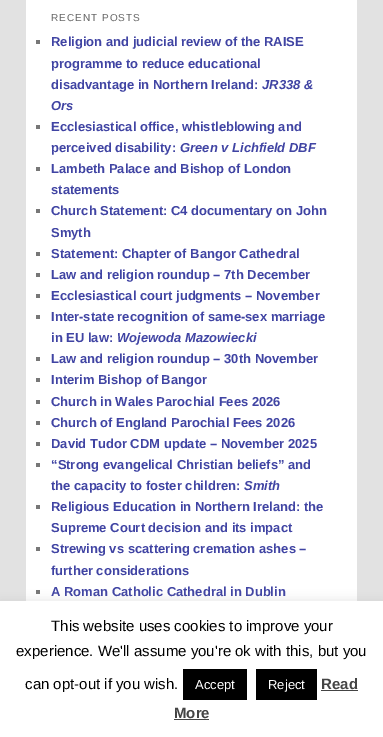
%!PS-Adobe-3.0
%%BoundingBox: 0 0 383 737
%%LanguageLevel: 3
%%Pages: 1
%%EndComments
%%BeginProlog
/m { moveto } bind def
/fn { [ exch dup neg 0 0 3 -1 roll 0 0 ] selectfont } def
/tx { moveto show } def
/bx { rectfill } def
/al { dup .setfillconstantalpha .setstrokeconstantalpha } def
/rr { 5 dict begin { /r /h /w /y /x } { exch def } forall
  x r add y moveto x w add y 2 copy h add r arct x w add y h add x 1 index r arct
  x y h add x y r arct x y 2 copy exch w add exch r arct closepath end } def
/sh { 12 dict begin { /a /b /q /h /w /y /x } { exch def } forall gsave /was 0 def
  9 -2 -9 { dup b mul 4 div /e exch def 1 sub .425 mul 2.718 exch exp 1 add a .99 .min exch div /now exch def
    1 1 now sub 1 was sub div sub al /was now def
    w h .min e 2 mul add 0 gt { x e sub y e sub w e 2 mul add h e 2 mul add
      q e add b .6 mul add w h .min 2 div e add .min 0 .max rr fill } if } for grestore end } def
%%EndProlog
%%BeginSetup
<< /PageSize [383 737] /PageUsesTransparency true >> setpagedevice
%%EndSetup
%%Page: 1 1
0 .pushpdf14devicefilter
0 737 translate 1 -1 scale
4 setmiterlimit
0.886 setgray
0 0 383 737 bx
1 setgray
26 0 331 601 bx
/LiberationSans-Regular 10 fn
0.4 setgray
51 21 m 1 0 (RECENT POSTS) ashow
0.467 setgray
36 40 4 4 bx
/LiberationSans-Bold 13 fn
0.251 0.267 0.639 setrgbcolor
(Religion and judicial review of the RAISE) 51 46 tx
(programme to reduce educational) 51 68 tx
(disadvantage in Northern Ireland:) 51 89 tx
/LiberationSans-BoldItalic 13 fn
(JR338 &) 262 89 tx
(Ors) 51 110 tx
0.467 setgray
36 125 4 4 bx
/LiberationSans-Bold 13 fn
0.251 0.267 0.639 setrgbcolor
(Ecclesiastical office, whistleblowing and) 51 131 tx
(perceived disability:) 51 152 tx
/LiberationSans-BoldItalic 13 fn
(Green v Lichfield DBF) 180 152 tx
0.467 setgray
36 167 4 4 bx
/LiberationSans-Bold 13 fn
0.251 0.267 0.639 setrgbcolor
(Lambeth Palace and Bishop of London) 51 173 tx
(statements) 51 194 tx
0.467 setgray
36 209 4 4 bx
0.251 0.267 0.639 setrgbcolor
(Church Statement: C4 documentary on John) 51 215 tx
(Smyth) 51 237 tx
0.467 setgray
36 252 4 4 bx
0.251 0.267 0.639 setrgbcolor
(Statement: Chapter of Bangor Cathedral) 51 258 tx
0.467 setgray
36 273 4 4 bx
0.251 0.267 0.639 setrgbcolor
(Law and religion roundup – 7th December) 51 279 tx
0.467 setgray
36 294 4 4 bx
0.251 0.267 0.639 setrgbcolor
(Ecclesiastical court judgments – November) 51 300 tx
0.467 setgray
36 315 4 4 bx
0.251 0.267 0.639 setrgbcolor
(Inter-state recognition of same-sex marriage) 51 321 tx
(in EU law:) 51 342 tx
/LiberationSans-BoldItalic 13 fn
(Wojewoda Mazowiecki) 117 342 tx
0.467 setgray
36 357 4 4 bx
/LiberationSans-Bold 13 fn
0.251 0.267 0.639 setrgbcolor
(Law and religion roundup – 30th November) 51 363 tx
0.467 setgray
36 378 4 4 bx
0.251 0.267 0.639 setrgbcolor
(Interim Bishop of Bangor) 51 384 tx
0.467 setgray
36 400 4 4 bx
0.251 0.267 0.639 setrgbcolor
(Church in Wales Parochial Fees 2026) 51 406 tx
0.467 setgray
36 421 4 4 bx
0.251 0.267 0.639 setrgbcolor
(Church of England Parochial Fees 2026) 51 427 tx
0.467 setgray
36 442 4 4 bx
0.251 0.267 0.639 setrgbcolor
(David Tudor CDM update – November 2025) 51 448 tx
0.467 setgray
36 463 4 4 bx
0.251 0.267 0.639 setrgbcolor
(“Strong evangelical Christian beliefs” and) 51 469 tx
(the capacity to foster children:) 51 490 tx
/LiberationSans-BoldItalic 13 fn
(Smith) 244 490 tx
0.467 setgray
36 505 4 4 bx
/LiberationSans-Bold 13 fn
0.251 0.267 0.639 setrgbcolor
(Religious Education in Northern Ireland: the) 51 511 tx
(Supreme Court decision and its impact) 51 532 tx
0.467 setgray
36 547 4 4 bx
0.251 0.267 0.639 setrgbcolor
(Strewing vs scattering cremation ashes –) 51 553 tx
(further considerations) 51 575 tx
0.467 setgray
36 590 4 4 bx
0.251 0.267 0.639 setrgbcolor
(A Roman Catholic Cathedral in Dublin) 51 596 tx
0.675 0.671 0.671 setrgbcolor
0 600 383 136 0 5 0.3 sh
1 setgray
0 601 383 136 bx
/LiberationSans-Regular 15 fn
0 setgray
(This website uses cookies to improve your) 51 631 tx
(experience. We'll assume you're ok with this, but you) 16 656 tx
(can opt-out if you wish.) 25 689 tx
183 669 64 31 bx
/LiberationSans-Regular 13 fn
1 setgray
(Accept) 195 689 tx
0 setgray
256 669 61 31 bx
1 setgray
(Reject) 268 689 tx
/LiberationSans-Bold 15 fn
0.267 setgray
(Read) 321 689 tx
321 690 37 1 bx
(More) 174 718 tx
174 719 35 1 bx
.poppdf14devicefilter showpage
%%EOF
